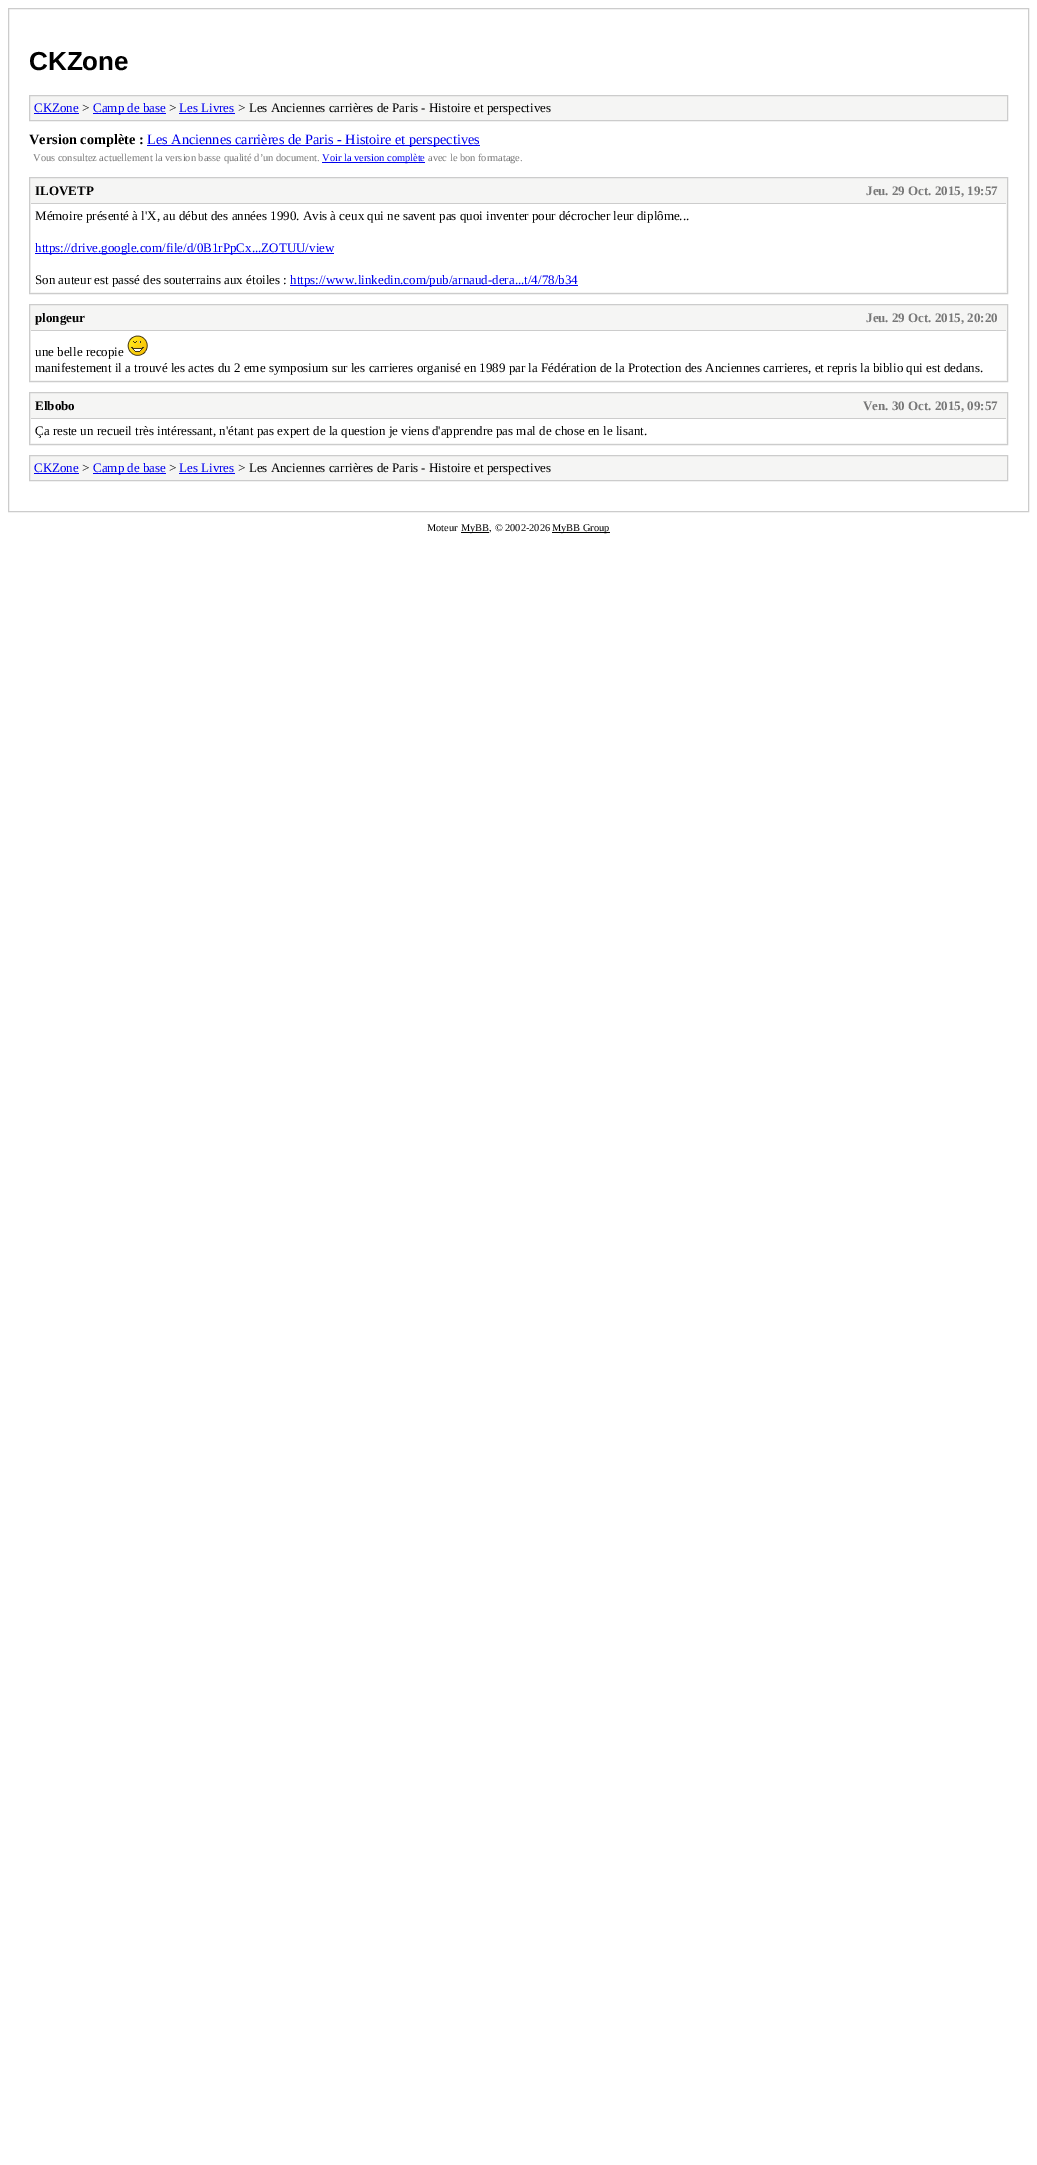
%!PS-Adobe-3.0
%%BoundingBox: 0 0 1037 2165
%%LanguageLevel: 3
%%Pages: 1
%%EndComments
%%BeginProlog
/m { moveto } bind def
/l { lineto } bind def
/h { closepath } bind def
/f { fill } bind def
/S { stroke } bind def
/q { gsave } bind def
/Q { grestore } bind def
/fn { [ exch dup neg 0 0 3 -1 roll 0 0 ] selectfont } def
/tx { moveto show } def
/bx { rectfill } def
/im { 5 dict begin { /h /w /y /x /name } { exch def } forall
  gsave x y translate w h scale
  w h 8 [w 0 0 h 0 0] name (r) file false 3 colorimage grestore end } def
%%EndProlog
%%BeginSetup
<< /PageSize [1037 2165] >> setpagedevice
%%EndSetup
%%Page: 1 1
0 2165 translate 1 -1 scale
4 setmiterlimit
1 setgray
0 0 1037 2165 bx
0.8 setgray
8.5 8.5 1020 503 rectstroke
/LiberationSans-Bold 26 fn
0 setgray
(CKZone) 29 70 tx
0.961 0.961 0.957 setrgbcolor
29.5 95.5 m 1007.5 95.5 l 1007.5 120.5 l 29.5 120.5 l h q f Q
0.8 setgray
S
/LiberationSerif-Regular 13 fn
0 0 0.933 setrgbcolor
(CKZone) 34 112 tx
34 113 45 1 bx
0 setgray
(>) 82 112 tx
0 0 0.933 setrgbcolor
93 113 73 1 bx
(Camp de base) 93 112 tx
0 setgray
(>) 169 112 tx
0 0 0.933 setrgbcolor
(Les Livres) 179 112 tx
179 113 56 1 bx
0 setgray
(> Les Anciennes carrières de Paris - Histoire et perspectives) 238 112 tx
/LiberationSerif-Bold 14.3 fn
(Version complète :) 29 144 tx
0 0 0.933 setrgbcolor
147 145 333 1 bx
/LiberationSerif-Regular 14.3 fn
(Les Anciennes carrières de Paris - Histoire et perspectives) 147 144 tx
/LiberationSerif-Regular 10.4 fn
0.467 setgray
(Vous consultez actuellement la version basse qualité d’un document.) 33 161 tx
0 0 0.933 setrgbcolor
322 162 103 1 bx
(Voir la version complète) 322 161 tx
0.467 setgray
(avec le bon formatage.) 428 161 tx
0.961 0.961 0.957 setrgbcolor
29.5 177.5 m 1007.5 177.5 l 1007.5 293.5 l 29.5 293.5 l h q f Q
0.8 setgray
S
31 203 975 1 bx
/LiberationSerif-Bold 13 fn
0 setgray
(ILOVETP) 35 195 tx
0.467 setgray
(Jeu. 29 Oct. 2015, 19:57) 866 195 tx
1 setgray
31 204 975 88 bx
/LiberationSerif-Regular 13 fn
0 setgray
(Mémoire présenté à l'X, au début des années 1990. Avis à ceux qui ne savent pas quoi inventer pour décrocher leur diplôme...) 35 220 tx
0 0 0.933 setrgbcolor
35 253 299 1 bx
(https://drive.google.com/file/d/0B1rPpCx...ZOTUU/view) 35 252 tx
0 setgray
(Son auteur est passé des souterrains aux étoiles :) 35 284 tx
0 0 0.933 setrgbcolor
290 285 288 1 bx
(https://www.linkedin.com/pub/arnaud-dera...t/4/78/b34) 290 284 tx
0.961 0.961 0.957 setrgbcolor
29.5 304.5 m 1007.5 304.5 l 1007.5 381.5 l 29.5 381.5 l h q f Q
0.8 setgray
S
31 330 975 1 bx
/LiberationSerif-Bold 13 fn
0 setgray
(plongeur) 35 322 tx
0.467 setgray
(Jeu. 29 Oct. 2015, 20:20) 866 322 tx
1 setgray
31 331 975 49 bx
/LiberationSerif-Regular 13 fn
0 setgray
(une belle recopie) 35 356 tx
(image0.raw) 127 335 21 21 im
(manifestement il a trouvé les actes du 2 eme symposium sur les carrieres organisé en 1989 par la Fédération de la Protection des Anciennes carrieres, et repris la biblio qui est dedans.) 35 372 tx
0.961 0.961 0.957 setrgbcolor
29.5 392.5 m 1007.5 392.5 l 1007.5 444.5 l 29.5 444.5 l h q f Q
0.8 setgray
S
31 418 975 1 bx
/LiberationSerif-Bold 13 fn
0 setgray
(Elbobo) 35 410 tx
0.467 setgray
(Ven. 30 Oct. 2015, 09:57) 863 410 tx
1 setgray
31 419 975 24 bx
/LiberationSerif-Regular 13 fn
0 setgray
(Ça reste un recueil très intéressant, n'étant pas expert de la question je viens d'apprendre pas mal de chose en le lisant.) 35 435 tx
0.961 0.961 0.957 setrgbcolor
29.5 455.5 m 1007.5 455.5 l 1007.5 480.5 l 29.5 480.5 l h q f Q
0.8 setgray
S
0 0 0.933 setrgbcolor
(CKZone) 34 472 tx
34 473 45 1 bx
0 setgray
(>) 82 472 tx
0 0 0.933 setrgbcolor
93 473 73 1 bx
(Camp de base) 93 472 tx
0 setgray
(>) 169 472 tx
0 0 0.933 setrgbcolor
(Les Livres) 179 472 tx
179 473 56 1 bx
0 setgray
(> Les Anciennes carrières de Paris - Histoire et perspectives) 238 472 tx
/LiberationSerif-Regular 10.4 fn
(Moteur) 427 531 tx
461 532 28 1 bx
(MyBB, © 2002-2026) 461 531 tx
552 532 58 1 bx
(MyBB Group) 552 531 tx
showpage
%%EOF
